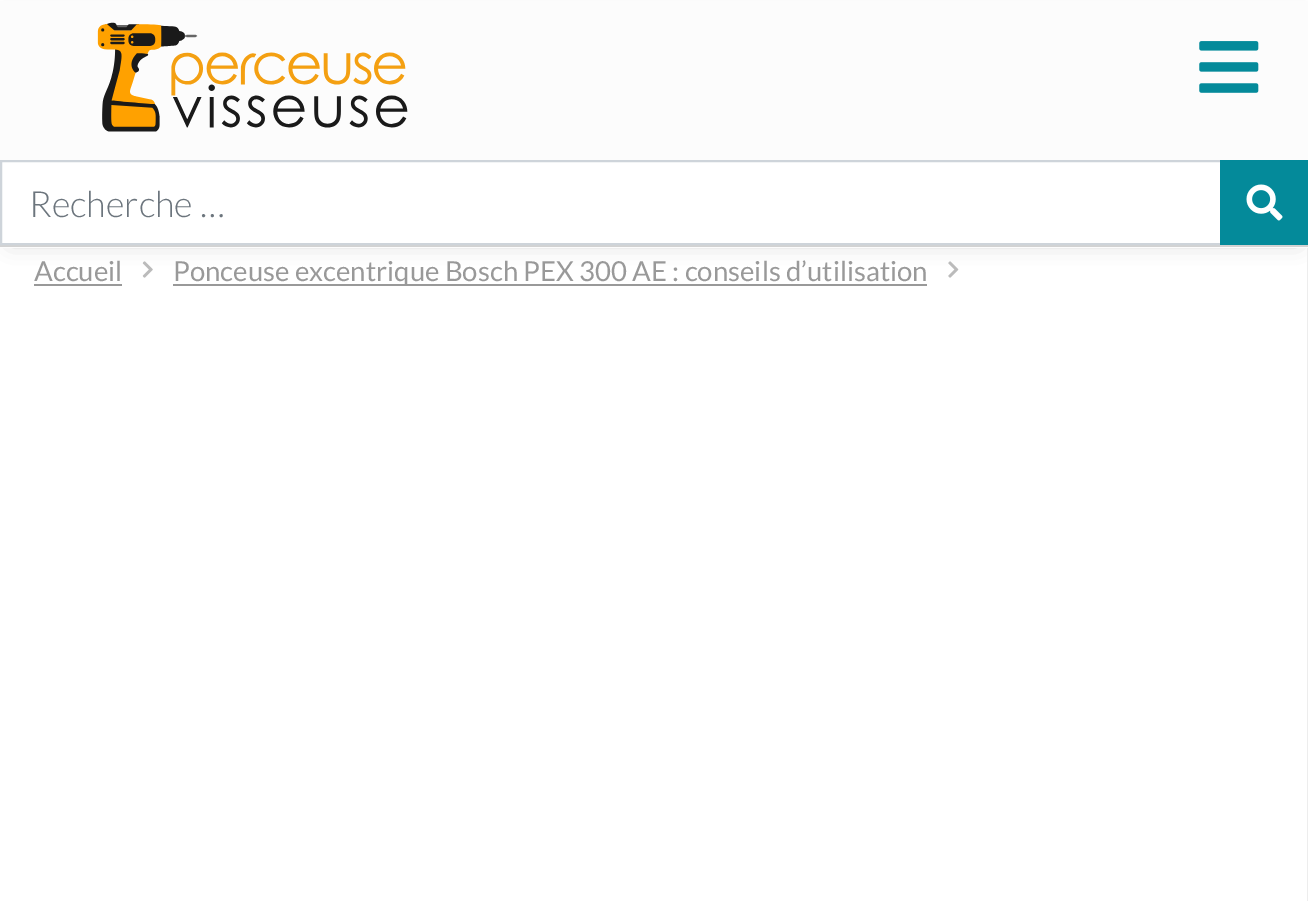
%!PS-Adobe-3.0
%%BoundingBox: 0 0 1308 901
%%LanguageLevel: 3
%%Pages: 1
%%EndComments
%%BeginProlog
/m { moveto } bind def
/l { lineto } bind def
/h { closepath } bind def
/f { fill } bind def
/S { stroke } bind def
/q { gsave } bind def
/Q { grestore } bind def
/w { setlinewidth } bind def
/fn { [ exch dup neg 0 0 3 -1 roll 0 0 ] selectfont } def
/tx { moveto show } def
/bx { rectfill } def
/al { dup .setfillconstantalpha .setstrokeconstantalpha } def
/rr { 5 dict begin { /r /h /w /y /x } { exch def } forall
  x r add y moveto x w add y 2 copy h add r arct x w add y h add x 1 index r arct
  x y h add x y r arct x y 2 copy exch w add exch r arct closepath end } def
/sh { 12 dict begin { /a /b /q /h /w /y /x } { exch def } forall gsave /was 0 def
  9 -2 -9 { dup b mul 4 div /e exch def 1 sub .425 mul 2.718 exch exp 1 add a .99 .min exch div /now exch def
    1 1 now sub 1 was sub div sub al /was now def
    w h .min e 2 mul add 0 gt { x e sub y e sub w e 2 mul add h e 2 mul add
      q e add b .6 mul add w h .min 2 div e add .min 0 .max rr fill } if } for grestore end } def
/im { 5 dict begin { /h /w /y /x /name } { exch def } forall
  gsave x y translate w h scale
  w h 8 [w 0 0 h 0 0] name (r) file false 3 colorimage grestore end } def
%%EndProlog
%%BeginSetup
<< /PageSize [1308 901] /PageUsesTransparency true >> setpagedevice
%%EndSetup
%%Page: 1 1
0 .pushpdf14devicefilter
0 901 translate 1 -1 scale
4 setmiterlimit
1 setgray
0 0 1308 901 bx
0.761 setgray
11 16 1287 225 0 11 1 sh
0.988 setgray
0 1 1308 247 bx
0.824 setgray
0 245 1308 2 bx
(image0.raw) 97 22 311 110 im
(image1.raw) 1199 41 60 52 im
1 setgray
1 161 m 1221 161 l 1221 244 l 1 244 l h q f Q
0.808 0.831 0.855 setrgbcolor
2 w
S
/Lato-Light 36 fn
0.424 0.459 0.49 setrgbcolor
(Recherche …) 29 217 tx
0.016 0.541 0.604 setrgbcolor
1220 160 88 85 bx
(image2.raw) 1246 184 37 37 im
0.929 setgray
1307 248 1 653 bx
/Lato-Regular 27.55 fn
0.6 setgray
(Accueil) 34 281 tx
34 284 88 2 bx
(image3.raw) 142 261 11 17 im
173 284 754 2 bx
(Ponceuse excentrique Bosch PEX 300 AE : conseils d’utilisation) 173 281 tx
(image4.raw) 948 261 11 17 im
.poppdf14devicefilter showpage
%%EOF
